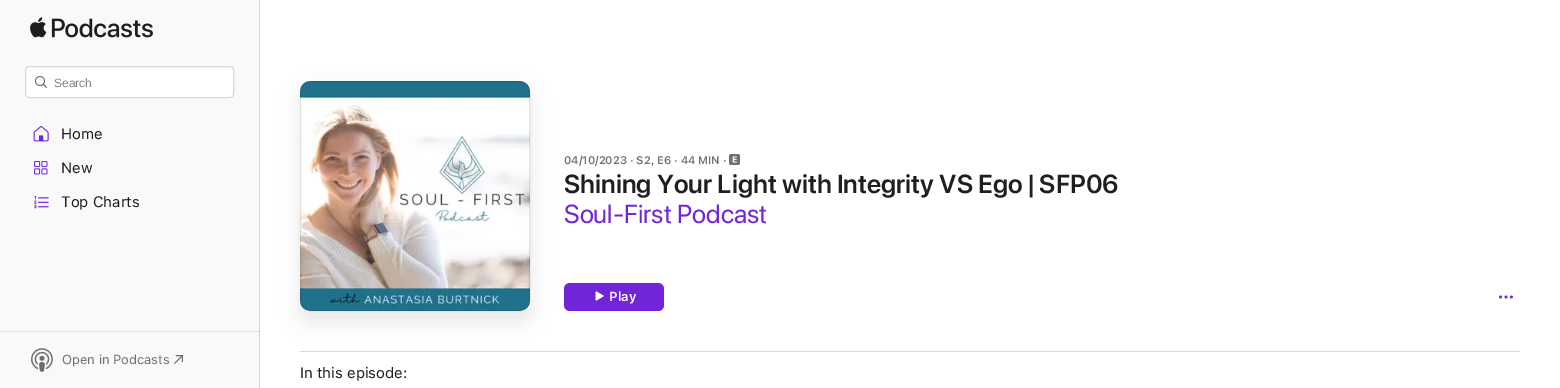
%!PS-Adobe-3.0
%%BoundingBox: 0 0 1560 388
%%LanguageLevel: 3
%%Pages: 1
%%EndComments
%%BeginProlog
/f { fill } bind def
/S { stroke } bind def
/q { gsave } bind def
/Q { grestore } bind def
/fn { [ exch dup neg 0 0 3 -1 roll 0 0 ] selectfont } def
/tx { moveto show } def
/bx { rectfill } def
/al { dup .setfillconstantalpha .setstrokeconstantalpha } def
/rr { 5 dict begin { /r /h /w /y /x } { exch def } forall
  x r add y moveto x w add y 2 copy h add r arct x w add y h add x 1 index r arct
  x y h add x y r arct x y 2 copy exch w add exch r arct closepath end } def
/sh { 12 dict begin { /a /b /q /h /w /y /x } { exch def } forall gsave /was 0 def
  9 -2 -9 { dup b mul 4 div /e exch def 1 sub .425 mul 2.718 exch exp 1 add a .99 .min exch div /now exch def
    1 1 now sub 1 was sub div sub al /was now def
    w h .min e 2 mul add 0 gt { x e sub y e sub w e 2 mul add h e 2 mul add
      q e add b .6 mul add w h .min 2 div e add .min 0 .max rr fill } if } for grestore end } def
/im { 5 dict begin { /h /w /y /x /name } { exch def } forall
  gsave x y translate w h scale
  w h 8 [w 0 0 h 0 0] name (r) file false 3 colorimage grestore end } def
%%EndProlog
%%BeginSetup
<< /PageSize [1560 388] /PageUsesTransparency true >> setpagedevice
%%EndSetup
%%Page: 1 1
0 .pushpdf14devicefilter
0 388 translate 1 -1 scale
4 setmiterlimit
1 setgray
0 0 1560 388 bx
0.976 0.976 0.98 setrgbcolor
0 0 259 388 bx
0.878 0.878 0.882 setrgbcolor
0 331 260 1 bx
0.831 0.831 0.835 setrgbcolor
259 0 1 388 bx
0.749 0.749 0.753 setrgbcolor
259 331 1 1 bx
(image0.raw) 30 17 123 21 im
1 setgray
25.5 66.5 208 31 3.5 rr q f Q
0.851 setgray
S
(image1.raw) 35 76 12 12 im
/LiberationSans-Regular 12 fn
0.522 setgray
(Search) 54 87 tx
(image2.raw) 33 126 16 16 im
/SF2-Regular 15 fn
0.122 setgray
(Home) 61 139 tx
(image3.raw) 34 161 14 14 im
(New) 61 173 tx
(image4.raw) 34 196 15 13 im
(Top Charts) 61 207 tx
(image5.raw) 31 348 22 24 im
/SF2-Regular 13 fn
0.439 setgray
(Open in Podcasts) 62 364 tx
(image6.raw) 174 355 9 9 im
0.851 setgray
300 351 1220 1 bx
0 setgray
300 91 230 230 10 10 0.1 sh
(image7.raw) 300 81 230 230 im
0.1 al
300.5 81.5 229 229 9.5 rr S
/SF-SemiBold 11 fn
1 al
0.439 setgray
(04/10/2023 · S2, E6 · 44 MIN ·) 564 164 tx
(image8.raw) 729 154 11 11 im
/SF2-SemiBold 26 fn
0.122 setgray
(Shining Your Light with Integrity VS Ego | SFP06) 564 193 tx
/SF-Regular 26 fn
0.447 0.141 0.847 setrgbcolor
(Soul-First Podcast) 564 223 tx
564 283 100 28 6 rr f
(image9.raw) 595 291 9 10 im
/SF-SemiBold 13 fn
1 setgray
(Play) 609 301 tx
(image10.raw) 1499 295 14 4 im
/SF2-Regular 15 fn
0.122 setgray
(In this episode:) 300 378 tx
.poppdf14devicefilter showpage
%%EOF
